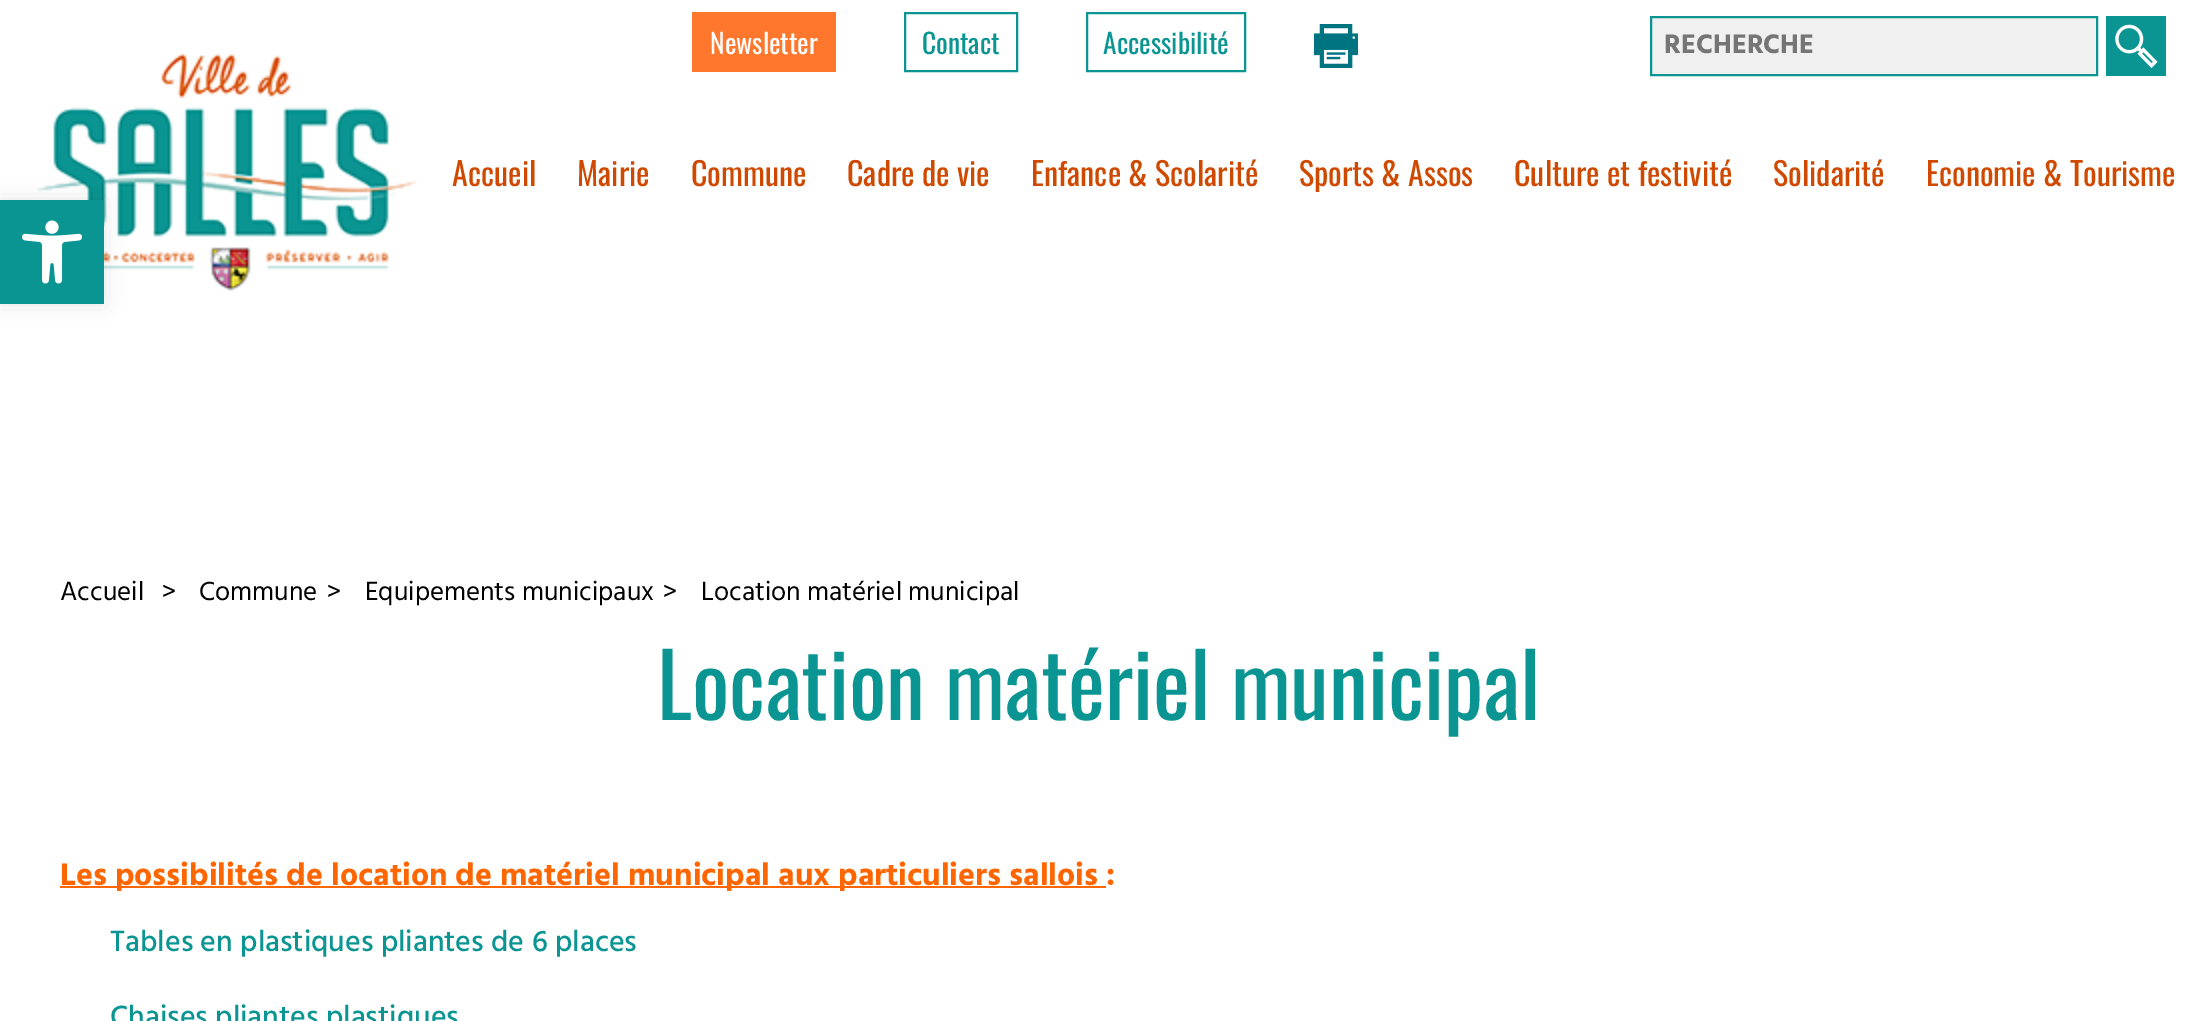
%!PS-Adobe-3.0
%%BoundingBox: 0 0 2196 1021
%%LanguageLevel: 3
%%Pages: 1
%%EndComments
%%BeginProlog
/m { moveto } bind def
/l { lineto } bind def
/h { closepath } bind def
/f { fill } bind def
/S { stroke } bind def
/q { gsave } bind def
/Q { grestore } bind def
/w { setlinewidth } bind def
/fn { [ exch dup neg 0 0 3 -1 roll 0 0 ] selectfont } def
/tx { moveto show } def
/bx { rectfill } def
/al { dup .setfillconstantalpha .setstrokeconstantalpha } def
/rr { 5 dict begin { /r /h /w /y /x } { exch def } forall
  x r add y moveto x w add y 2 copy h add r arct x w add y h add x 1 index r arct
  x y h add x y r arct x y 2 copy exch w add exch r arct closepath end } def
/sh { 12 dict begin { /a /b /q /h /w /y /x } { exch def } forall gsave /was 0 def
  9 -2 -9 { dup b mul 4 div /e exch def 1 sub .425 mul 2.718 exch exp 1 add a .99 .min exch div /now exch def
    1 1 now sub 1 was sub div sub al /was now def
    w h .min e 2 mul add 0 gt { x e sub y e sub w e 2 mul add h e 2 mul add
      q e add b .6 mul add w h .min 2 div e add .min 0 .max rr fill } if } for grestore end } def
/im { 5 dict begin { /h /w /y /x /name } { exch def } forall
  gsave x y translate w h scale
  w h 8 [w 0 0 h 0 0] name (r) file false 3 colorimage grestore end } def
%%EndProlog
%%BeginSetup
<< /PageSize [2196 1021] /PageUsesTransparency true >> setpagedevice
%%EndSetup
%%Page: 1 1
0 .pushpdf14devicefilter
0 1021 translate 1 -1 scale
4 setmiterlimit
1 setgray
0 0 2196 1021 bx
1 0.467 0.176 setrgbcolor
692 12 144 60 bx
/Oswald-Regular 27.5 fn
1 setgray
(Newsletter) 710 54 tx
0.039 0.584 0.573 setrgbcolor
2 w
905 13 112 58 rectstroke
(Contact) 922 54 tx
1087 13 158 58 rectstroke
(Accessibilité) 1103 54 tx
(image0.raw) 1314 24 44 44 im
0.941 setgray
1651 17 m 2097 17 l 2097 75 l 1651 75 l h q f Q
0.039 0.584 0.573 setrgbcolor
S
/Hind-Bold 27.5 fn
0.459 setgray
(RECHERCHE) 1664 53 tx
0.039 0.584 0.573 setrgbcolor
2106 16 60 60 bx
(image1.raw) 2115 24 43 44 im
(image2.raw) 37 53 380 238 im
/Oswald-Regular 32 fn
0.816 0.286 0 setrgbcolor
(Accueil) 452 186 tx
(Mairie) 577 186 tx
(Commune) 691 186 tx
(Cadre de vie) 847 186 tx
(Enfance & Scolarité) 1031 186 tx
(Sports & Assos) 1299 186 tx
(Culture et festivité) 1514 186 tx
(Solidarité) 1773 186 tx
(Economie & Tourisme) 1926 186 tx
0 setgray
0 200 104 104 0 10 0.1 sh
0.039 0.584 0.573 setrgbcolor
0 200 104 104 bx
(image3.raw) 22 220 61 64 im
/Hind-Regular 26.9 fn
0 setgray
(Accueil) 60 600 tx
(>) 162 600 tx
(Commune) 199 600 tx
(>) 327 600 tx
(Equipements municipaux) 365 600 tx
(>) 663 600 tx
(Location matériel municipal) 701 600 tx
/Oswald-Regular 88 fn
0.039 0.584 0.573 setrgbcolor
(Location matériel municipal) 657 720 tx
1 0.4 0 setrgbcolor
60 886 1046 2 bx
/Hind-Bold 32 fn
(Les possibilités de location de matériel municipal aux particuliers sallois :) 60 885 tx
/Hind-Medium 30 fn
0.039 0.584 0.573 setrgbcolor
(Tables en plastiques pliantes de 6 places) 110 951 tx
(Chaises pliantes plastiques) 110 1026 tx
.poppdf14devicefilter showpage
%%EOF
